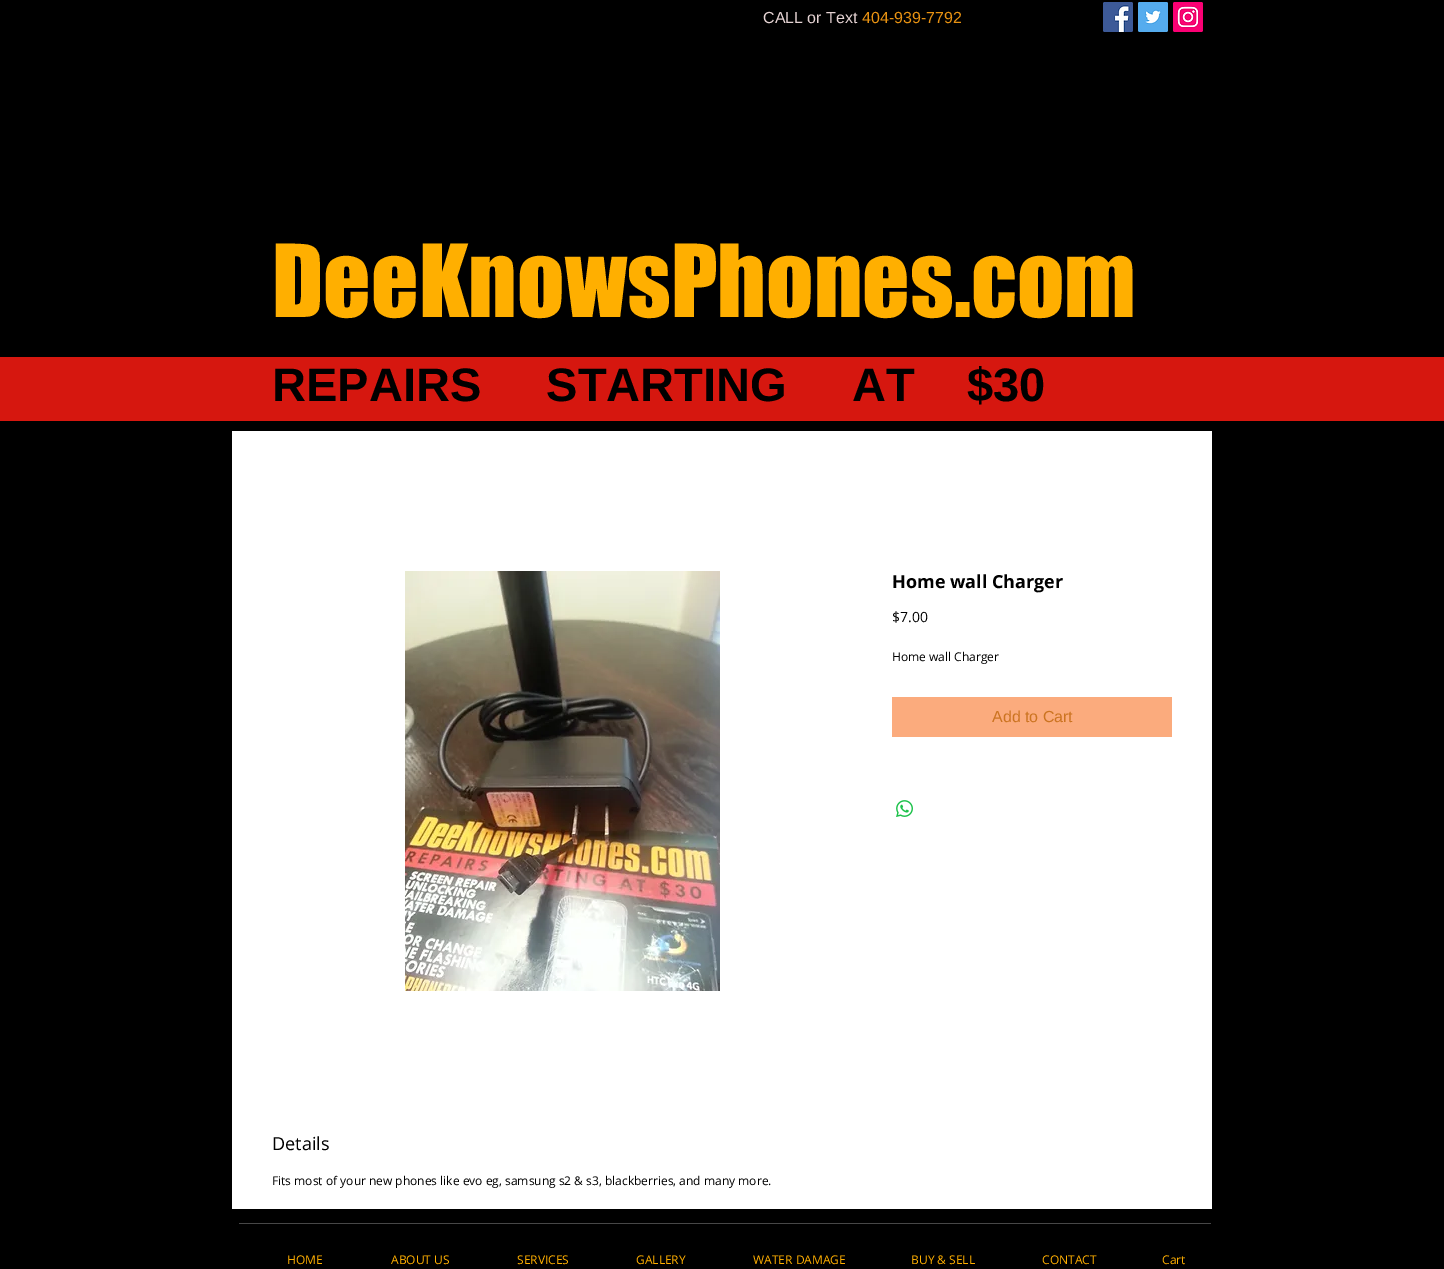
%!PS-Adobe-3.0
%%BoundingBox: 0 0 1444 1269
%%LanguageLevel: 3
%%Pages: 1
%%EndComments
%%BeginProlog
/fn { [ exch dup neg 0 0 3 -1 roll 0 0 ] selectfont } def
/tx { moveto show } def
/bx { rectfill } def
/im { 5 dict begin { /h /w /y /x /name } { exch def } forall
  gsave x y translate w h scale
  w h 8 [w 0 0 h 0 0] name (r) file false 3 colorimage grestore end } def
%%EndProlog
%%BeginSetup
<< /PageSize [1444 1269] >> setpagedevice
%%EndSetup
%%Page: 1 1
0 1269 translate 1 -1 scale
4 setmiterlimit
0 setgray
0 0 1444 1269 bx
/LiberationSans-Regular 16 fn
0.898 0.827 0.827 setrgbcolor
(CALL or Text) 763 23 tx
0.91 0.573 0.071 setrgbcolor
(404-939-7792) 862 23 tx
(image0.raw) 1103 2 30 30 im
(image1.raw) 1138 2 30 30 im
(image2.raw) 1173 2 30 30 im
/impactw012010-Regular 93 fn
1 0.686 0 setrgbcolor
(DeeKnowsPhones.com) 272 317 tx
0.839 0.09 0.059 setrgbcolor
0 357 1444 64 bx
/LiberationSans-Bold 47 fn
0 setgray
(REPAIRS     STARTING     AT    $30) 272 401 tx
1 setgray
232 431 980 778 bx
(image3.raw) 405 571 315 420 im
/OpenSans-Bold 18 fn
0 setgray
(Home wall Charger) 892 588 tx
/OpenSans-Regular 14 fn
($7.00) 892 622 tx
/OpenSans-Regular 12 fn
(Home wall Charger) 892 661 tx
0.984 0.671 0.49 setrgbcolor
892 697 280 40 bx
/LiberationSans-Regular 16 fn
0.8 0.455 0.129 setrgbcolor
(Add to Cart) 992 722 tx
(image4.raw) 896 800 17 17 im
/OpenSans-Regular 18 fn
0 setgray
(Details) 272 1150 tx
/OpenSans-Regular 12 fn
(Fits most of your new phones like evo eg, samsung s2 & s3, blackberries, and many more.) 272 1185 tx
0.278 setgray
239 1223 972 1 bx
1 0.686 0 setrgbcolor
(HOME) 287 1264 tx
(ABOUT US) 391 1264 tx
(SERVICES) 517 1264 tx
(GALLERY) 636 1264 tx
(WATER DAMAGE) 753 1264 tx
(BUY & SELL) 911 1264 tx
(CONTACT) 1042 1264 tx
(Cart) 1162 1264 tx
showpage
%%EOF
